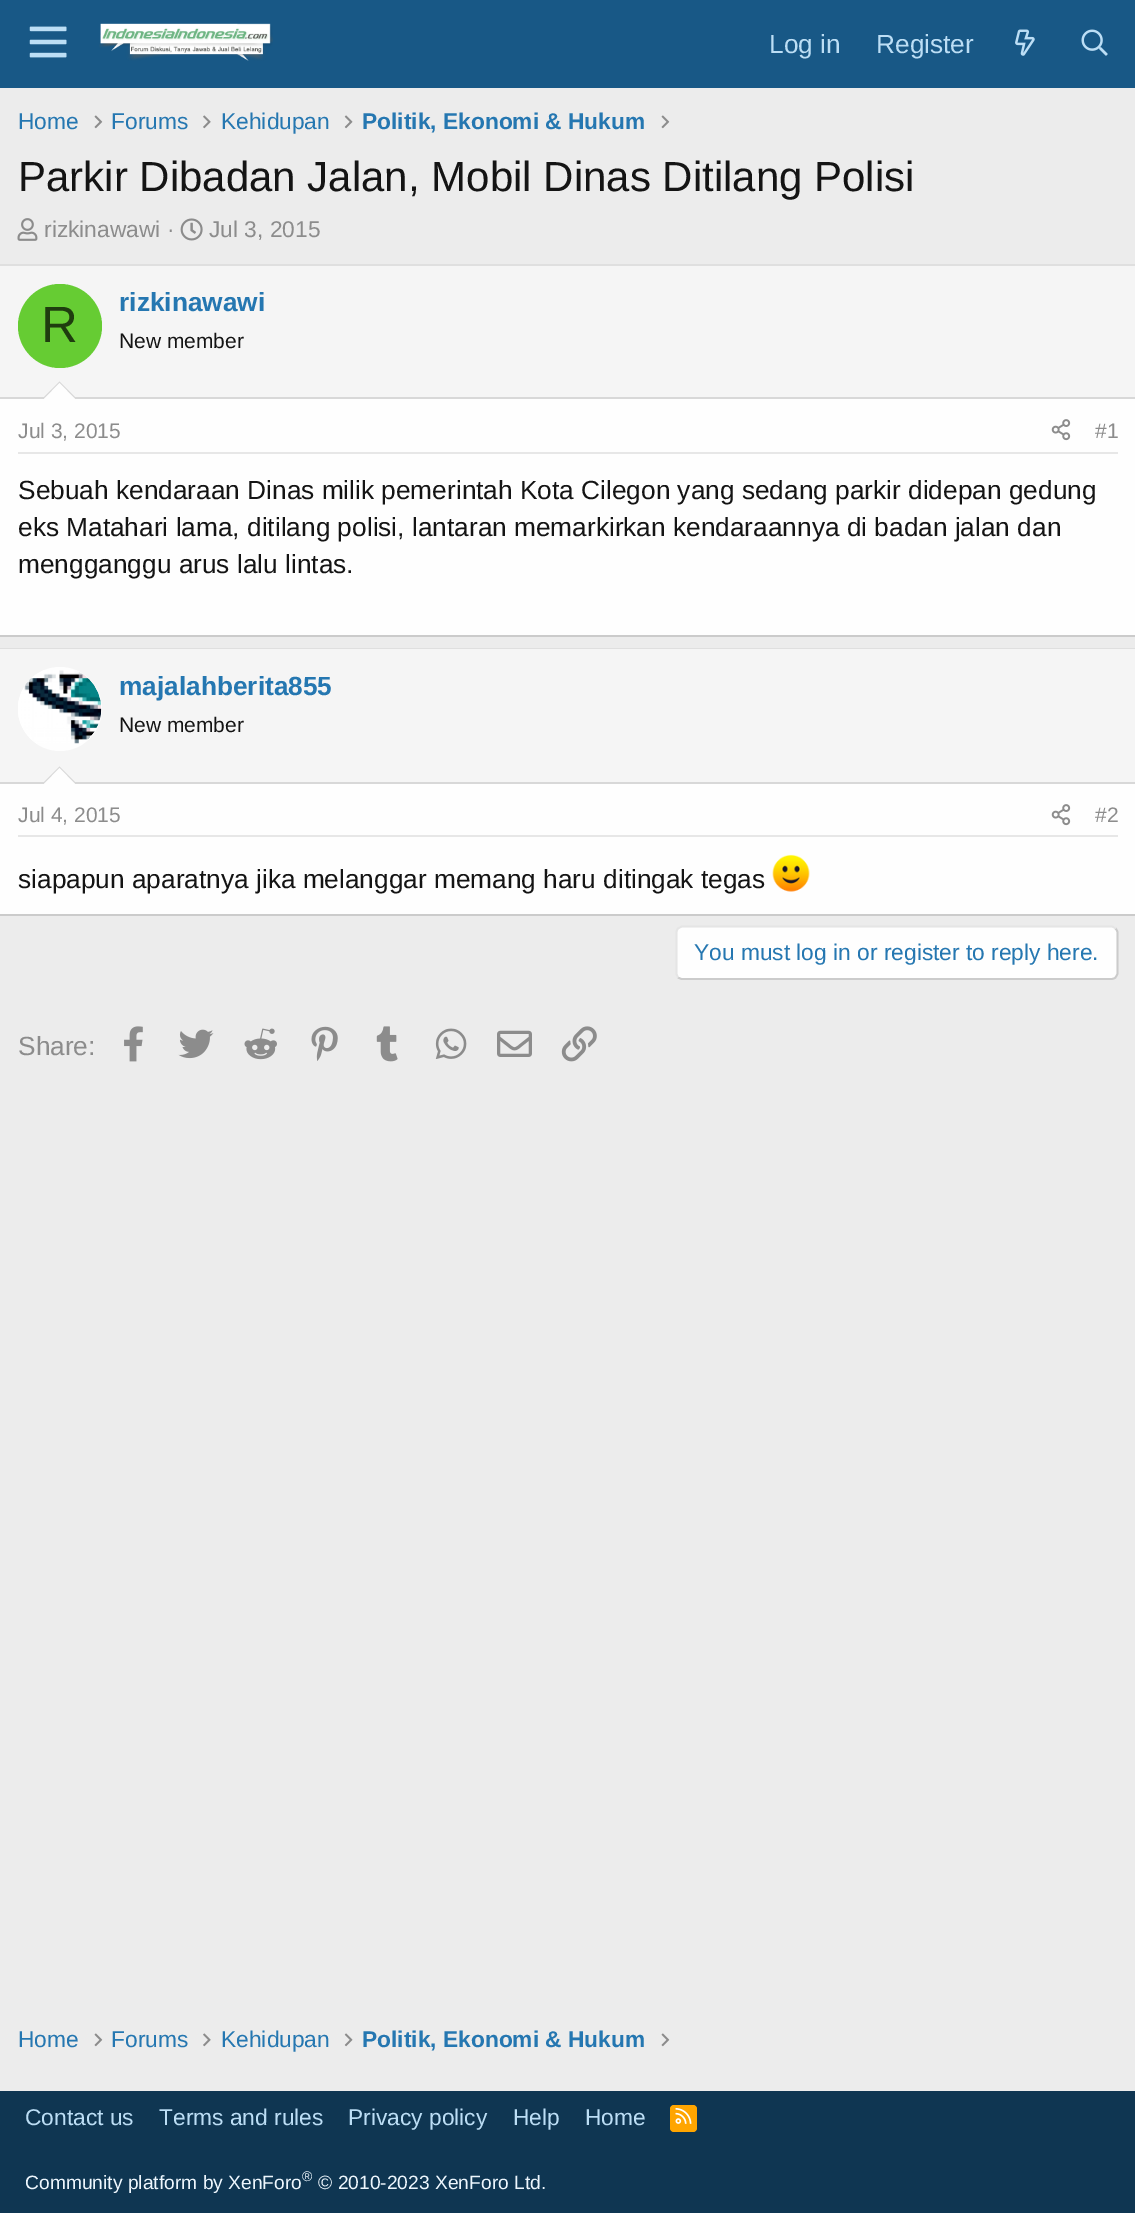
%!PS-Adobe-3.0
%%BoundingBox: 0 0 1135 2213
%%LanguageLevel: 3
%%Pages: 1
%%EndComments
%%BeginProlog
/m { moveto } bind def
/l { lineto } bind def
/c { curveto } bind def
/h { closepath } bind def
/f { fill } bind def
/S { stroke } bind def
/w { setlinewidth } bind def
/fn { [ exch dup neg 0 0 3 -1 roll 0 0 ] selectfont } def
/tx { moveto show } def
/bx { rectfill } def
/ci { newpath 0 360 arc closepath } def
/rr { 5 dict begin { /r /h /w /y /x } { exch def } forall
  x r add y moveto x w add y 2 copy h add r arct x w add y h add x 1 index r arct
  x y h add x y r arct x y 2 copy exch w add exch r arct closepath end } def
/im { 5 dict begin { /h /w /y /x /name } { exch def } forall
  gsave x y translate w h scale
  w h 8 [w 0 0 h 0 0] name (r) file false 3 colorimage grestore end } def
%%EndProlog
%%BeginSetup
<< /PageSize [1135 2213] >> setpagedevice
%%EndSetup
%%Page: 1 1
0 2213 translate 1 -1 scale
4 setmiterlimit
0.925 setgray
0 0 1135 2213 bx
0.094 0.345 0.525 setrgbcolor
0 0 1135 88 bx
(image0.raw) 29 26 38 32 im
(image1.raw) 99 23 174 38 im
/LiberationSans-Regular 26.25 fn
0.737 0.871 0.961 setrgbcolor
(Log in) 769 53 tx
(Register) 876 53 tx
(image2.raw) 1015 29 20 27 im
(image3.raw) 1081 29 27 27 im
/LiberationSans-Regular 22.75 fn
0.145 0.467 0.694 setrgbcolor
(Home) 18 129 tx
(image4.raw) 94 115 9 14 im
(Forums) 111 129 tx
(image5.raw) 203 115 8 14 im
(Kehidupan) 221 129 tx
(image6.raw) 344 115 9 14 im
/LiberationSans-Bold 22.75 fn
(Politik, Ekonomi & Hukum) 362 129 tx
(image4.raw) 661 115 9 14 im
/LiberationSans-Regular 42 fn
0.078 setgray
(Parkir Dibadan Jalan, Mobil Dinas Ditilang Polisi) 18 191 tx
(image7.raw) 17 218 21 23 im
/LiberationSans-Regular 22.75 fn
0.549 setgray
(rizkinawawi ·) 44 237 tx
(image8.raw) 180 218 23 23 im
(Jul 3, 2015) 209 237 tx
0.996 setgray
0 399 1135 236 bx
0.875 setgray
0 264 1135 2 bx
0.796 setgray
0 635 1135 2 bx
0.961 setgray
0 266 1135 131 bx
0.847 setgray
0 397 1135 2 bx
0.4 0.8 0.2 setrgbcolor
60 326 42 ci f
/LiberationSans-Regular 51 fn
0.122 0.239 0.059 setrgbcolor
(R) 41 342 tx
/LiberationSans-Bold 26.25 fn
0.145 0.467 0.694 setrgbcolor
(rizkinawawi) 119 311 tx
/LiberationSans-Regular 21 fn
0.078 setgray
(New member) 119 348 tx
0.847 setgray
77 399 m 42 399 l 59.5 381.5 l h f
0.996 setgray
75 399 m 44 399 l 59.5 383 l h f
0.906 setgray
18 452 1100 2 bx
0.549 setgray
(Jul 3, 2015) 18 438 tx
(image9.raw) 1051 419 20 22 im
(#1) 1095 438 tx
/LiberationSans-Regular 26.25 fn
0.078 setgray
(Sebuah kendaraan Dinas milik pemerintah Kota Cilegon yang sedang parkir didepan gedung) 18 499 tx
(eks Matahari lama, ditilang polisi, lantaran memarkirkan kendaraannya di badan jalan dan) 18 536 tx
(mengganggu arus lalu lintas.) 18 573 tx
0.996 setgray
0 784 1135 130 bx
0.875 setgray
0 648 1135 1 bx
0.796 setgray
0 914 1135 2 bx
0.961 setgray
0 649 1135 133 bx
0.847 setgray
0 782 1135 2 bx
0.996 setgray
60 709 42 ci f
(image10.raw) 18 670 84 74 im
/LiberationSans-Bold 26.25 fn
0.145 0.467 0.694 setrgbcolor
(majalahberita855) 119 695 tx
/LiberationSans-Regular 21 fn
0.078 setgray
(New member) 119 732 tx
0.847 setgray
77 784 m 42 784 l 59.5 766.5 l h f
0.996 setgray
75 784 m 44 784 l 59.5 768 l h f
0.906 setgray
18 835 1100 2 bx
0.549 setgray
(Jul 4, 2015) 18 822 tx
(image9.raw) 1051 804 20 22 im
(#2) 1095 822 tx
/LiberationSans-Regular 26.25 fn
0.078 setgray
(siapapun aparatnya jika melanggar memang haru ditingak tegas) 18 888 tx
(image11.raw) 772 854 38 38 im
0.996 setgray
676 926 442 54 7 rr f
0.796 setgray
1.8 w
1115.5 928.5 m 1116.5 929.5 1117.5 931 1117.5 933 c 1117.5 973 l 1117.5 974.5 1116.5 976 1115.5 977.5 c 1114.5 978.5 1113 979 1111 979 c 682.5 979 l 681 979 679.5 978.5 678 977.5 c S
0.898 setgray
678 977.5 m 677 976 676.5 974.5 676.5 973 c 676.5 933 l 676.5 931 677 929.5 678 928.5 c 679.5 927.5 681 926.5 682.5 926.5 c 1111 926.5 l 1113 926.5 1114.5 927.5 1115.5 928.5 c S
/LiberationSans-Regular 22.75 fn
0.145 0.467 0.694 setrgbcolor
(You must log in or register to reply here.) 694 960 tx
/LiberationSans-Regular 26.25 fn
0.549 setgray
(Share:) 18 1055 tx
(image12.raw) 124 1026 19 36 im
(image13.raw) 178 1029 36 30 im
(image14.raw) 244 1028 33 32 im
(image15.raw) 311 1026 27 35 im
(image16.raw) 376 1026 22 36 im
(image17.raw) 435 1028 32 31 im
(image18.raw) 497 1030 35 27 im
(image19.raw) 561 1026 36 36 im
/LiberationSans-Regular 22.75 fn
0.145 0.467 0.694 setrgbcolor
(Home) 18 2047 tx
(image4.raw) 94 2033 9 14 im
(Forums) 111 2047 tx
(image5.raw) 203 2033 8 14 im
(Kehidupan) 221 2047 tx
(image6.raw) 344 2033 9 14 im
/LiberationSans-Bold 22.75 fn
(Politik, Ekonomi & Hukum) 362 2047 tx
(image4.raw) 661 2033 9 14 im
0.059 0.212 0.322 setrgbcolor
0 2091 1135 122 bx
/LiberationSans-Regular 22.75 fn
0.737 0.871 0.961 setrgbcolor
(Contact us) 25 2125 tx
(Terms and rules) 159 2125 tx
(Privacy policy) 348 2125 tx
(Help) 513 2125 tx
(Home) 585 2125 tx
1 0.647 0 setrgbcolor
670 2105 27 27 4 rr f
(image20.raw) 675 2108 17 16 im
/LiberationSans-Regular 19.25 fn
0.929 0.965 0.992 setrgbcolor
(Community platform by XenForo) 25 2189 tx
/LiberationSans-Regular 14 fn
(®) 302 2181 tx
/LiberationSans-Regular 19.25 fn
(© 2010-2023 XenForo Ltd.) 318 2189 tx
showpage
%%EOF
